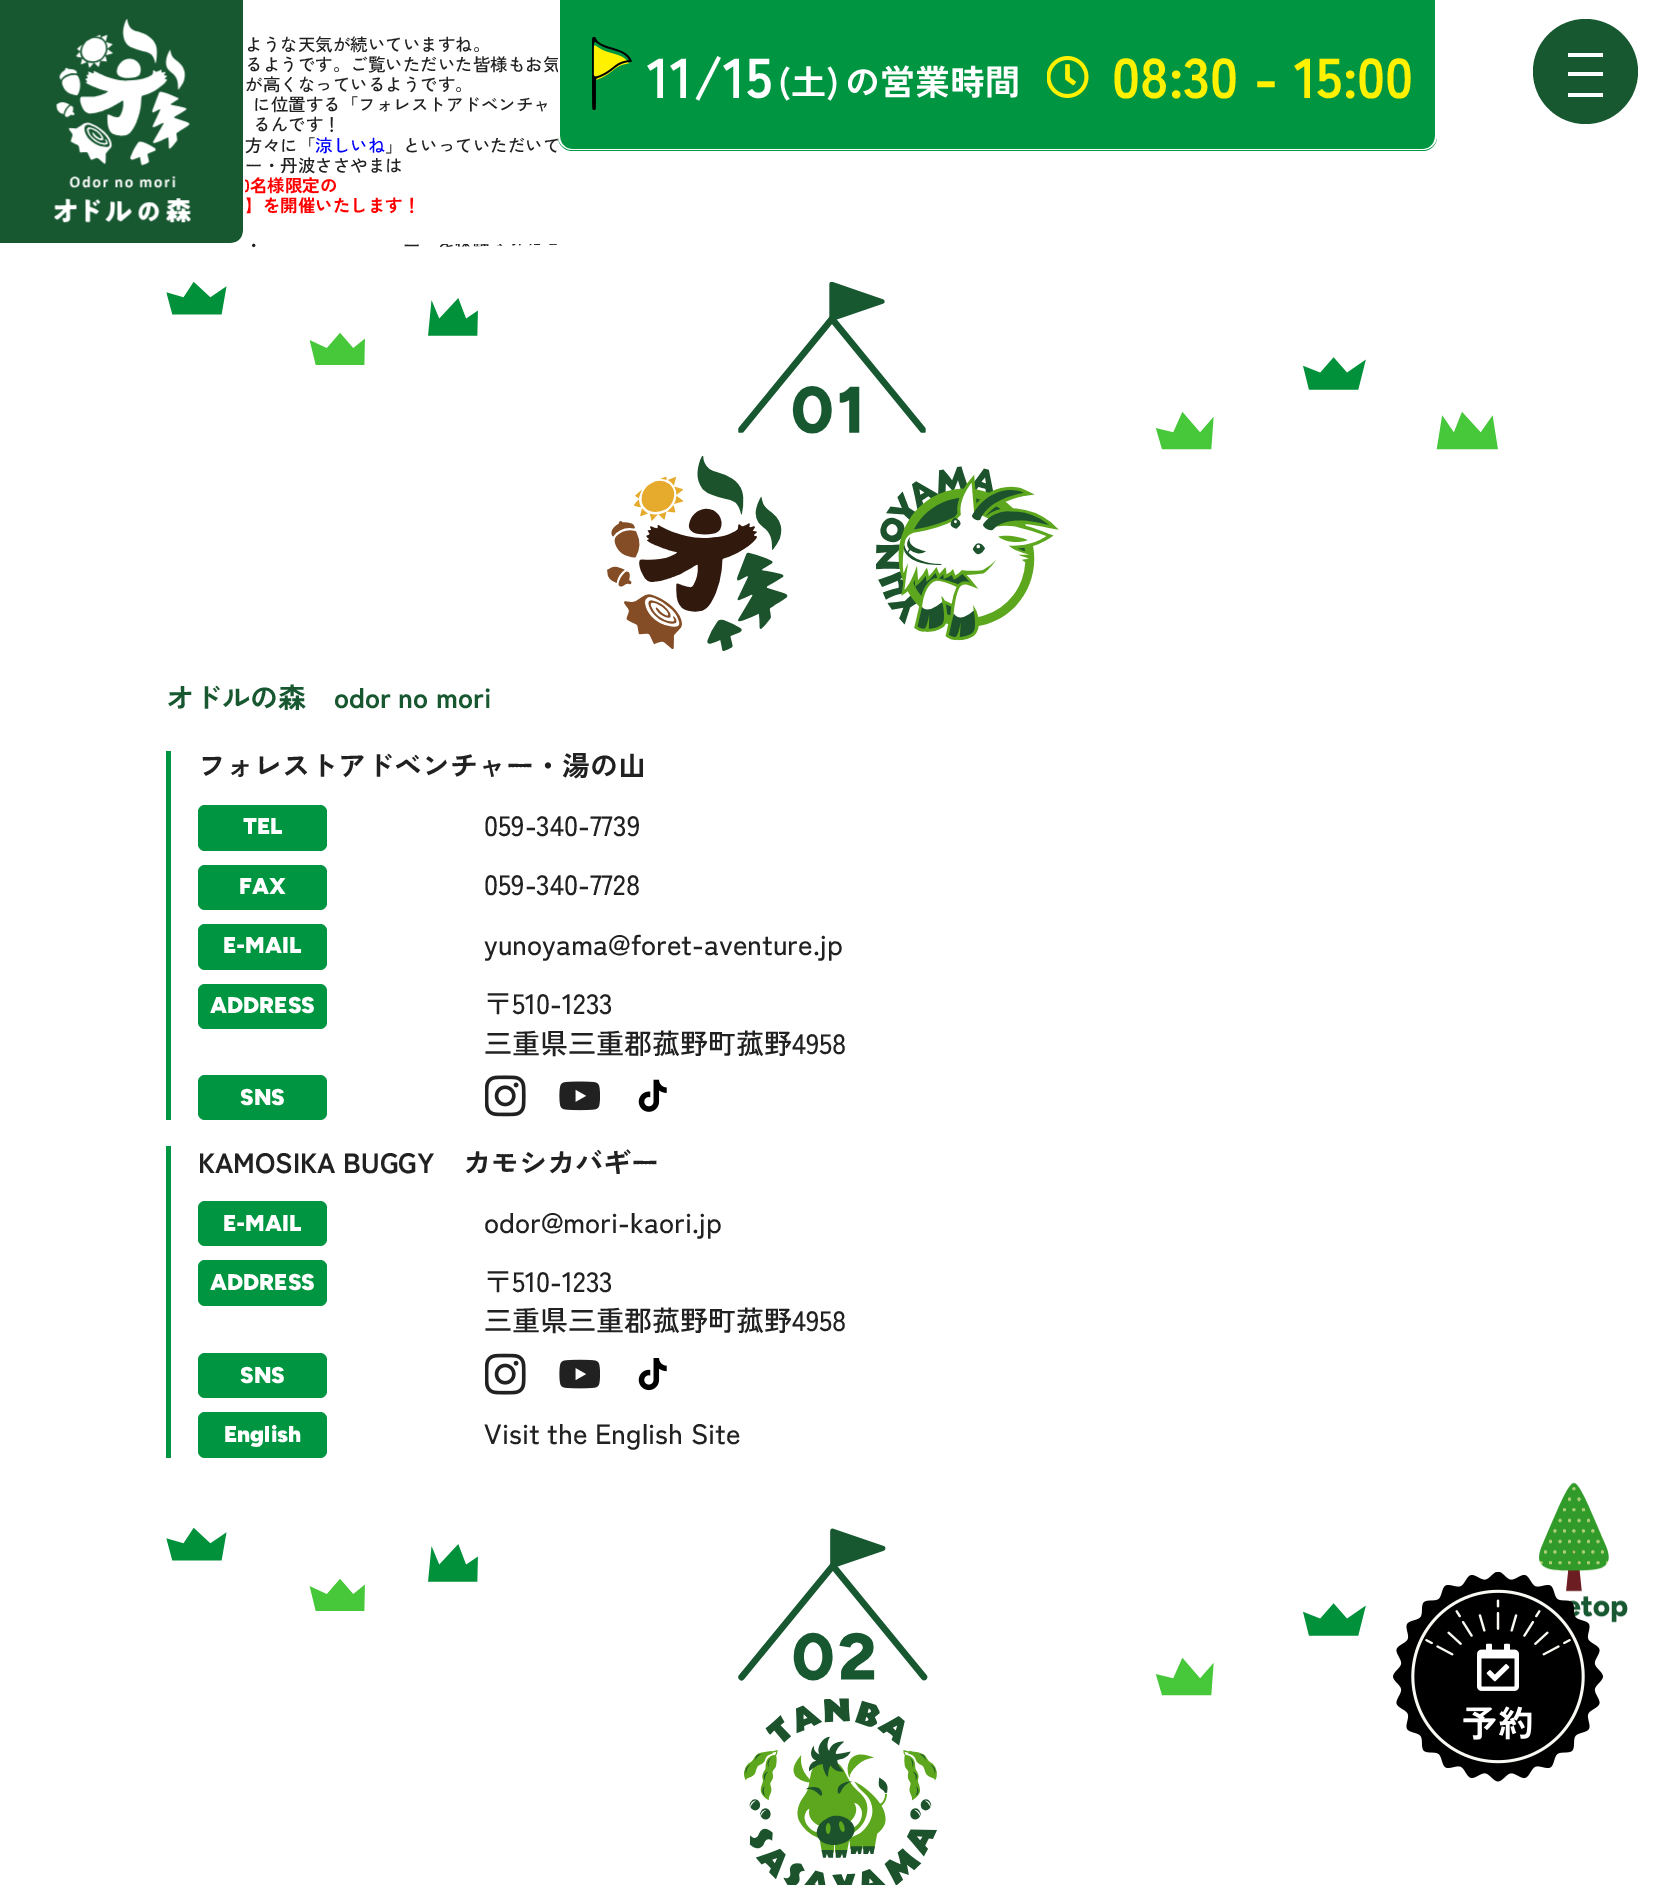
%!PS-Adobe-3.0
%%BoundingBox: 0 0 1664 1885
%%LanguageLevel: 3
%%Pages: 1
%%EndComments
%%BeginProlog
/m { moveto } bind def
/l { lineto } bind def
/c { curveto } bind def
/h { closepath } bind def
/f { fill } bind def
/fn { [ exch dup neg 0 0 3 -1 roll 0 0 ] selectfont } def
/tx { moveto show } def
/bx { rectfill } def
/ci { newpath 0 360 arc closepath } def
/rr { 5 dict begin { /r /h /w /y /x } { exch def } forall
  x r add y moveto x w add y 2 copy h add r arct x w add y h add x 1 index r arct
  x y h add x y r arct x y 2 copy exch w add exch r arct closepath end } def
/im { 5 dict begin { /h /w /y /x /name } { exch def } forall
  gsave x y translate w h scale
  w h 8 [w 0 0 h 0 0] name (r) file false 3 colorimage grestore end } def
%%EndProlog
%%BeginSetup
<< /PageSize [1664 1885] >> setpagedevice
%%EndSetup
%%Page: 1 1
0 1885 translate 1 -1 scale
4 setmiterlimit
1 setgray
0 0 1664 1885 bx
/ZenKakuGothicNew-Medium 17.5 fn
0.129 setgray
(ような天気が続いていますね。) 245 51 tx
(るようです。ご覧いただいた皆様もお気) 245 71 tx
/ZenKakuGothicNew-Bold 17.5 fn
1 0 0 setrgbcolor
(0名様限定の) 241 192 tx
0.09 0.345 0.192 setrgbcolor
0 0 m 243 0 l 243 231 l 243 237.5 237.5 243 231 243 c 0 243 l h f
1 setgray
0 0 m 245 0 l 245 231 l 245 239 239 245 231 245 c 0 245 l h 0 0 m 243 0 l 243 231 l 243 238 238 243 231 243 c 0 243 l h eofill
(image0.raw) 54 19 137 204 im
0 0.588 0.255 setrgbcolor
558 0 m 1437 0 l 1437 137 l 1437 144.5 1430.5 151 1423 151 c 572 151 l 564.5 151 558 144.5 558 137 c h f
1 setgray
558 0 m 1437 0 l 1437 136 l 1437 144 1430 150 1423 150 c 572 150 l 565 150 558 144 558 136 c h 560 0 m 1435 0 l 1435 136 l 1435 143 1430 149 1423 149 c 572 149 l 565 149 560 143 560 136 c h eofill
(image1.raw) 592 37 40 73 im
/ZenKakuGothicNew-Bold 56 fn
(11/15) 647 98 tx
/ZenKakuGothicNew-Bold 35 fn
(\(土\)) 778 95 tx
(の営業時間) 845 95 tx
(image2.raw) 1047 56 42 42 im
/ZenKakuGothicNew-Bold 56 fn
1 0.945 0 setrgbcolor
(08:30 - 15:00) 1112 98 tx
0.09 0.345 0.192 setrgbcolor
1585.5 71.5 52.5 ci f
1 setgray
1568 53 35 4 bx
1568 72 35 4 bx
1568 93 35 4 bx
/ZenKakuGothicNew-Medium 17.5 fn
0.129 setgray
(が高くなっているようです。) 245 91 tx
(に位置する「フォレストアドベンチャ) 253 111 tx
(るんです！) 253 131 tx
(方々に「) 245 152 tx
0 0 1 setrgbcolor
(涼しいね) 315 152 tx
0.129 setgray
(」といっていただいて) 385 152 tx
(ー・丹波ささやまは) 245 172 tx
/ZenKakuGothicNew-Bold 17.5 fn
1 0 0 setrgbcolor
(】を開催いたします！) 245 212 tx
/ZenKakuGothicNew-Medium 17.5 fn
0.129 setgray
(・) 245 252 tx
(ー) 403 252 tx
(image3.raw) 440 244 780 3 im
(image4.raw) 166 282 1332 369 im
/ZenKakuGothicNew-Bold 28 fn
0.09 0.345 0.192 setrgbcolor
(オドルの森　odor no mori) 166 708 tx
0 0.588 0.255 setrgbcolor
166 751 5 369 bx
0.129 setgray
(フォレストアドベンチャー・湯の山) 198 776 tx
0 0.588 0.255 setrgbcolor
198 805 129 46 7 rr f
/Figtree-Black 22.75 fn
1 setgray
(TEL) 243 834 tx
/ZenKakuGothicNew-Medium 28 fn
0.129 setgray
(059-340-7739) 484 836 tx
0 0.588 0.255 setrgbcolor
198 865 129 45 7 rr f
/Figtree-Black 22.75 fn
1 setgray
(FAX) 239 894 tx
/ZenKakuGothicNew-Medium 28 fn
0.129 setgray
(059-340-7728) 484 895 tx
0 0.588 0.255 setrgbcolor
198 924 129 46 7 rr f
/Figtree-Black 22.75 fn
1 setgray
(E-MAIL) 223 953 tx
/ZenKakuGothicNew-Medium 28 fn
0.129 setgray
(yunoyama@foret-aventure.jp) 484 955 tx
0 0.588 0.255 setrgbcolor
198 984 129 45 7 rr f
/Figtree-Black 22.75 fn
1 setgray
(ADDRESS) 210 1013 tx
/ZenKakuGothicNew-Medium 28 fn
0.129 setgray
(〒510-1233) 484 1014 tx
(三重県三重郡菰野町菰野4958) 484 1054 tx
0 0.588 0.255 setrgbcolor
198 1075 129 45 7 rr f
/Figtree-Black 22.75 fn
1 setgray
(SNS) 240 1105 tx
(image5.raw) 485 1075 41 42 im
(image6.raw) 559 1081 41 30 im
(image7.raw) 638 1079 29 33 im
0 0.588 0.255 setrgbcolor
166 1146 5 312 bx
/ZenKakuGothicNew-Bold 28 fn
0.129 setgray
(KAMOSIKA BUGGY　カモシカバギー) 198 1173 tx
0 0.588 0.255 setrgbcolor
198 1201 129 45 7 rr f
/Figtree-Black 22.75 fn
1 setgray
(E-MAIL) 223 1231 tx
/ZenKakuGothicNew-Medium 28 fn
0.129 setgray
(odor@mori-kaori.jp) 484 1233 tx
0 0.588 0.255 setrgbcolor
198 1260 129 46 7 rr f
/Figtree-Black 22.75 fn
1 setgray
(ADDRESS) 210 1290 tx
/ZenKakuGothicNew-Medium 28 fn
0.129 setgray
(〒510-1233) 484 1292 tx
(三重県三重郡菰野町菰野4958) 484 1331 tx
0 0.588 0.255 setrgbcolor
198 1353 129 45 7 rr f
/Figtree-Black 22.75 fn
1 setgray
(SNS) 240 1383 tx
(image8.raw) 485 1353 41 42 im
(image9.raw) 559 1359 41 30 im
(image10.raw) 638 1358 29 33 im
0 0.588 0.255 setrgbcolor
198 1412 129 46 7 rr f
1 setgray
(English) 224 1442 tx
/ZenKakuGothicNew-Medium 28 fn
0.129 setgray
(Visit the English Site) 484 1444 tx
(image11.raw) 166 1528 1200 357 im
(image12.raw) 1539 1482 89 141 im
(image13.raw) 1393 1572 210 210 im
showpage
%%EOF
